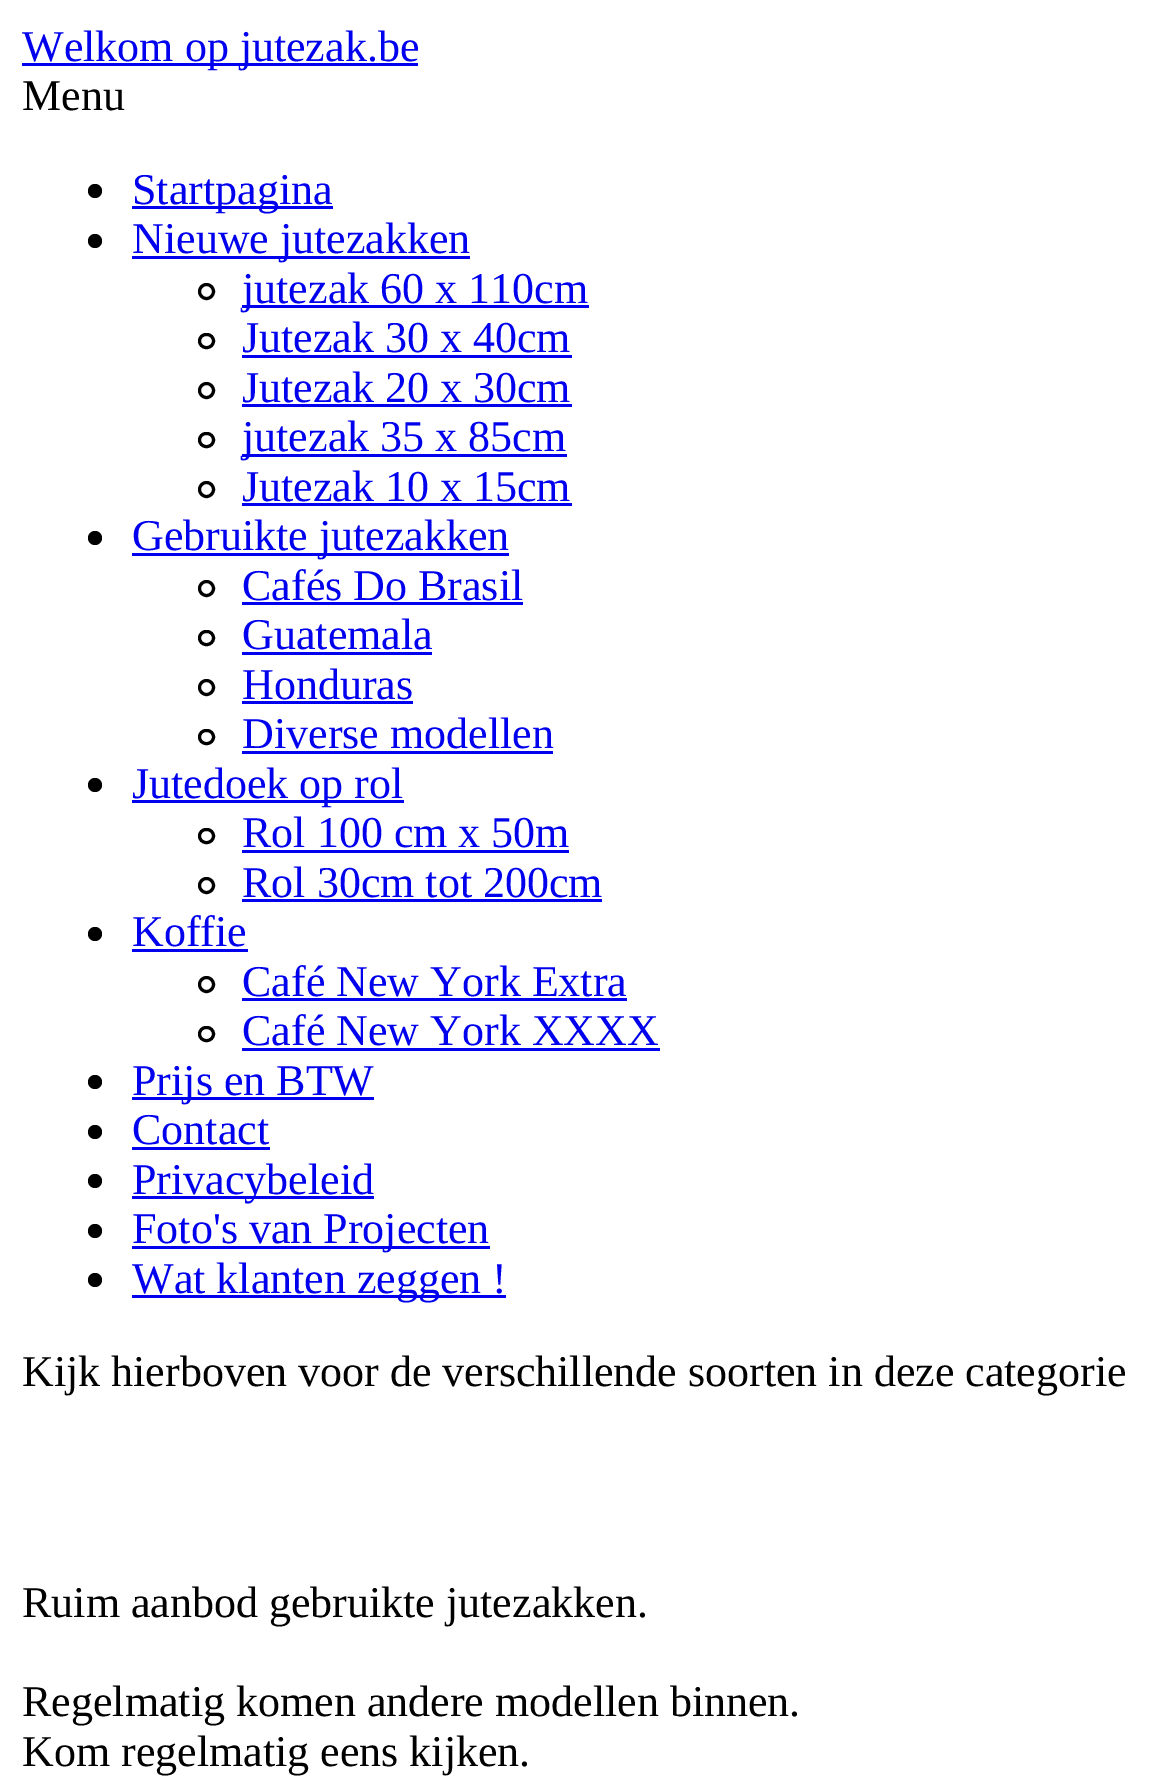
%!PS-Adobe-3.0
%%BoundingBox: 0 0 1168 1784
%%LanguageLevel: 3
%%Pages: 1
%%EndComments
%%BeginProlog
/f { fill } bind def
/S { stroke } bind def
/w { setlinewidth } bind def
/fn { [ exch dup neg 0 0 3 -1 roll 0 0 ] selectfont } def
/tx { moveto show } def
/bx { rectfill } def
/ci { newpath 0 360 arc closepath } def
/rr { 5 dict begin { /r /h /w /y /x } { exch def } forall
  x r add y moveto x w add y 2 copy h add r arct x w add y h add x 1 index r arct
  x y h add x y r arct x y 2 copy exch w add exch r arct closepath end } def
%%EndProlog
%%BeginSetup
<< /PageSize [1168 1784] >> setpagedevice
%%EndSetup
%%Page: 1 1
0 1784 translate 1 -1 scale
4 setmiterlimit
1 setgray
0 0 1168 1784 bx
0 0 0.933 setrgbcolor
22 63 396 3 bx
/LiberationSerif-Regular 44 fn
(Welkom op jutezak.be) 22 61 tx
0 setgray
(Menu) 22 110 tx
95 191 7 ci f
0 0 0.933 setrgbcolor
132 206 201 3 bx
(Startpagina) 132 204 tx
0 setgray
95 241 7 ci f
0 0 0.933 setrgbcolor
132 256 338 3 bx
(Nieuwe jutezakken) 132 253 tx
0 setgray
3 w
206.5 291.5 7 ci S
0 0 0.933 setrgbcolor
242 305 347 3 bx
(jutezak 60 x 110cm) 242 303 tx
0 setgray
199.5 334.5 14 13 6.5 rr S
0 0 0.933 setrgbcolor
(Jutezak 30 x 40cm) 242 352 tx
242 355 330 3 bx
0 setgray
206.5 390.5 7 ci S
0 0 0.933 setrgbcolor
(Jutezak 20 x 30cm) 242 402 tx
242 404 330 3 bx
0 setgray
199.5 433.5 14 13 6.5 rr S
0 0 0.933 setrgbcolor
242 454 325 3 bx
(jutezak 35 x 85cm) 242 451 tx
0 setgray
206.5 489.5 7 ci S
0 0 0.933 setrgbcolor
(Jutezak 10 x 15cm) 242 501 tx
242 503 330 3 bx
0 setgray
95 538 7 ci f
0 0 0.933 setrgbcolor
132 553 377 3 bx
(Gebruikte jutezakken) 132 550 tx
0 setgray
206.5 588.5 7 ci S
0 0 0.933 setrgbcolor
(Cafés Do Brasil) 242 600 tx
242 602 281 3 bx
0 setgray
199.5 631.5 14 13 6.5 rr S
0 0 0.933 setrgbcolor
(Guatemala) 242 649 tx
242 652 190 3 bx
0 setgray
206.5 687.5 7 ci S
0 0 0.933 setrgbcolor
(Honduras) 242 699 tx
242 701 171 3 bx
0 setgray
199.5 730.5 14 13 6.5 rr S
0 0 0.933 setrgbcolor
(Diverse modellen) 242 748 tx
242 751 311 3 bx
0 setgray
95 785 7 ci f
0 0 0.933 setrgbcolor
132 800 272 3 bx
(Jutedoek op rol) 132 798 tx
0 setgray
199.5 829.5 14 13 6.5 rr S
0 0 0.933 setrgbcolor
(Rol 100 cm x 50m) 242 847 tx
242 850 327 3 bx
0 setgray
206.5 885.5 7 ci S
0 0 0.933 setrgbcolor
(Rol 30cm tot 200cm) 242 897 tx
242 899 360 3 bx
0 setgray
95 934 7 ci f
0 0 0.933 setrgbcolor
(Koffie) 132 946 tx
132 949 116 3 bx
0 setgray
206.5 984.5 7 ci S
0 0 0.933 setrgbcolor
(Café New York Extra) 242 996 tx
242 998 385 3 bx
0 setgray
199.5 1027.5 14 13 6.5 rr S
0 0 0.933 setrgbcolor
(Café New York XXXX) 242 1045 tx
242 1048 418 3 bx
0 setgray
95 1082 7 ci f
0 0 0.933 setrgbcolor
132 1097 242 3 bx
(Prijs en BTW) 132 1095 tx
0 setgray
95 1132 7 ci f
0 0 0.933 setrgbcolor
(Contact) 132 1144 tx
132 1147 138 3 bx
0 setgray
95 1181 7 ci f
0 0 0.933 setrgbcolor
132 1196 242 3 bx
(Privacybeleid) 132 1194 tx
0 setgray
95 1231 7 ci f
0 0 0.933 setrgbcolor
132 1246 358 3 bx
(Foto's van Projecten) 132 1243 tx
0 setgray
95 1280 7 ci f
0 0 0.933 setrgbcolor
132 1295 374 3 bx
(Wat klanten zeggen !) 132 1293 tx
0 setgray
(Kijk hierboven voor de verschillende soorten in deze categorie) 22 1386 tx
(Ruim aanbod gebruikte jutezakken.) 22 1617 tx
(Regelmatig komen andere modellen binnen.) 22 1716 tx
(Kom regelmatig eens kijken.) 22 1766 tx
showpage
%%EOF
